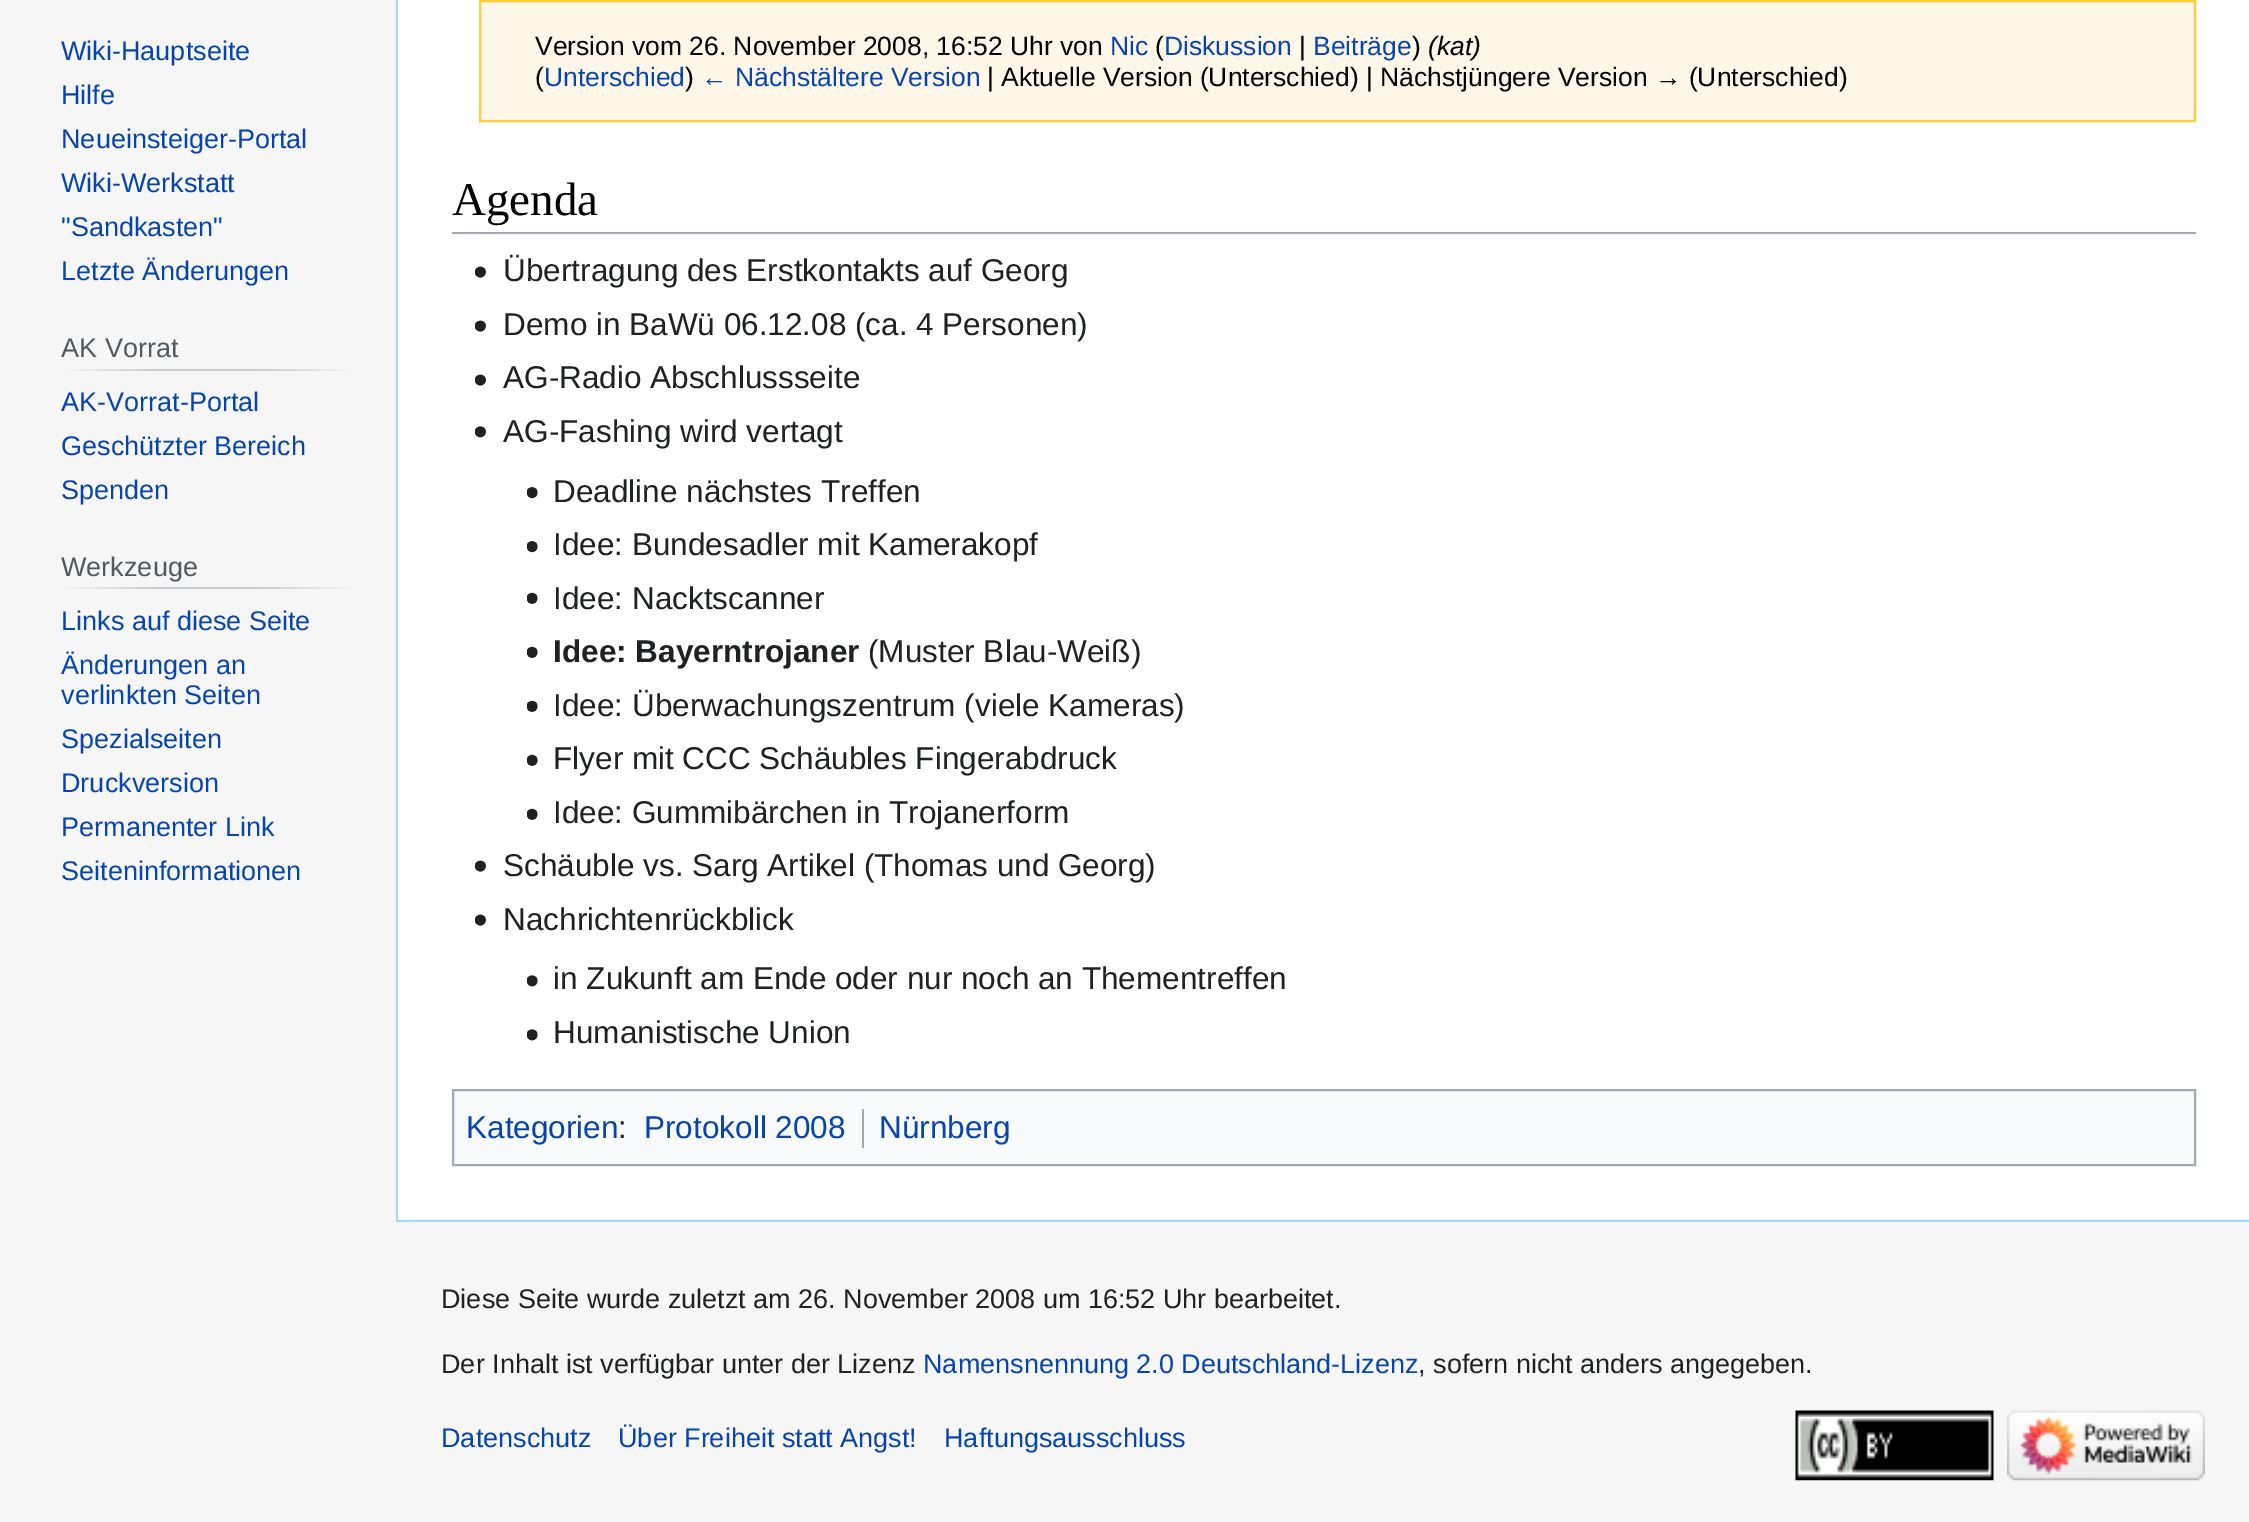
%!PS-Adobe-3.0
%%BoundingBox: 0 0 2249 1522
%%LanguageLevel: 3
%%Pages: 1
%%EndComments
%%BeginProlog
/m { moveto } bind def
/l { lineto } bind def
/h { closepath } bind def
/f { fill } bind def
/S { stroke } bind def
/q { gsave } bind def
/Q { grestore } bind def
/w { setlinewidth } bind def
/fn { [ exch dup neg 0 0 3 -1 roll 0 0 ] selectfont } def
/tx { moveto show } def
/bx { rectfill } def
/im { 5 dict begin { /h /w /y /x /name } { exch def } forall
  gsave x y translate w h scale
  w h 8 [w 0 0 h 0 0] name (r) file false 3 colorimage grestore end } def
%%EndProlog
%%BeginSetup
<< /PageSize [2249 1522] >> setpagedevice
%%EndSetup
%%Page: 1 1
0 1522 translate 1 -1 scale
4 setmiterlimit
0.965 setgray
0 0 2249 1522 bx
/LiberationSans-Regular 27 fn
0.024 0.271 0.678 setrgbcolor
(Wiki-Hauptseite) 61 60 tx
(Hilfe) 61 104 tx
(Neueinsteiger-Portal) 61 148 tx
(Wiki-Werkstatt) 61 192 tx
("Sandkasten") 61 236 tx
(Letzte Änderungen) 61 280 tx
q 61 369 m 356 369 l 356 371 l 61 371 l h clip newpath
<< /ShadingType 2 /ColorSpace /DeviceRGB /Coords [61 370 356 370] /Extend [true true] /Function << /FunctionType 3 /Domain [0 1] /Functions [<< /FunctionType 2 /Domain [0 1] /C0 [0.965 0.965 0.965] /C1 [0.784 0.8 0.82] /N 1 >> << /FunctionType 2 /Domain [0 1] /C0 [0.784 0.8 0.82] /C1 [0.784 0.8 0.82] /N 1 >> << /FunctionType 2 /Domain [0 1] /C0 [0.784 0.8 0.82] /C1 [0.965 0.965 0.965] /N 1 >>] /Bounds [0.33 0.66] /Encode [0 1 0 1 0 1] >> >> shfill Q
0.329 0.349 0.365 setrgbcolor
(AK Vorrat) 61 357 tx
0.024 0.271 0.678 setrgbcolor
(AK-Vorrat-Portal) 61 411 tx
(Geschützter Bereich) 61 455 tx
(Spenden) 61 499 tx
q 61 587 m 356 587 l 356 589 l 61 589 l h clip newpath
<< /ShadingType 2 /ColorSpace /DeviceRGB /Coords [61 588 356 588] /Extend [true true] /Function << /FunctionType 3 /Domain [0 1] /Functions [<< /FunctionType 2 /Domain [0 1] /C0 [0.965 0.965 0.965] /C1 [0.784 0.8 0.82] /N 1 >> << /FunctionType 2 /Domain [0 1] /C0 [0.784 0.8 0.82] /C1 [0.784 0.8 0.82] /N 1 >> << /FunctionType 2 /Domain [0 1] /C0 [0.784 0.8 0.82] /C1 [0.965 0.965 0.965] /N 1 >>] /Bounds [0.33 0.66] /Encode [0 1 0 1 0 1] >> >> shfill Q
0.329 0.349 0.365 setrgbcolor
(Werkzeuge) 61 576 tx
0.024 0.271 0.678 setrgbcolor
(Links auf diese Seite) 61 630 tx
(Änderungen an) 61 674 tx
(verlinkten Seiten) 61 704 tx
(Spezialseiten) 61 748 tx
(Druckversion) 61 792 tx
(Permanenter Link) 61 836 tx
(Seiteninformationen) 61 880 tx
1 setgray
398 0 1851 1220 bx
0.655 0.843 0.976 setrgbcolor
396 1220 1853 2 bx
396 0 2 1222 bx
0.996 0.965 0.906 setrgbcolor
480 1 m 2195 1 l 2195 121 l 480 121 l h q f Q
1 0.8 0.2 setrgbcolor
2 w
S
/LiberationSans-Regular 26.45 fn
0 setgray
(Version vom 26. November 2008, 16:52 Uhr von) 535 55 tx
0.024 0.271 0.678 setrgbcolor
(Nic) 1110 55 tx
0 setgray
(\() 1155 55 tx
0.024 0.271 0.678 setrgbcolor
(Diskussion) 1164 55 tx
0 setgray
(|) 1299 55 tx
0.024 0.271 0.678 setrgbcolor
(Beiträge) 1313 55 tx
0 setgray
(\)) 1412 55 tx
/LiberationSans-Italic 26.45 fn
(\(kat\)) 1428 55 tx
/LiberationSans-Regular 26.45 fn
(\() 535 86 tx
0.024 0.271 0.678 setrgbcolor
(Unterschied) 544 86 tx
0 setgray
(\)) 685 86 tx
0.024 0.271 0.678 setrgbcolor
(← Nächstältere Version) 701 86 tx
0 setgray
(| Aktuelle Version \(Unterschied\) | Nächstjüngere Version → \(Unterschied\)) 987 86 tx
0.635 0.663 0.694 setrgbcolor
452 232 1744 2 bx
/LiberationSerif-Regular 47 fn
0 setgray
(Agenda) 452 215 tx
(image0.raw) 475 266 11 12 im
/LiberationSans-Regular 31.5 fn
0.125 0.129 0.133 setrgbcolor
(Übertragung des Erstkontakts auf Georg) 503 281 tx
(image0.raw) 475 320 11 12 im
(Demo in BaWü 06.12.08 \(ca. 4 Personen\)) 503 335 tx
(image1.raw) 475 374 11 12 im
(AG-Radio Abschlussseite) 503 388 tx
(image2.raw) 475 426 11 12 im
(AG-Fashing wird vertagt) 503 442 tx
(image3.raw) 527 487 11 12 im
(Deadline nächstes Treffen) 553 502 tx
(image3.raw) 527 541 11 12 im
(Idee: Bundesadler mit Kamerakopf) 553 555 tx
(image4.raw) 527 592 11 12 im
(Idee: Nacktscanner) 553 609 tx
(image4.raw) 527 646 11 12 im
/LiberationSans-Bold 31.5 fn
(Idee: Bayerntrojaner) 553 662 tx
/LiberationSans-Regular 31.5 fn
(\(Muster Blau-Weiß\)) 868 662 tx
(image4.raw) 527 700 11 12 im
(Idee: Überwachungszentrum \(viele Kameras\)) 553 716 tx
(image4.raw) 527 754 11 12 im
(Flyer mit CCC Schäubles Fingerabdruck) 553 769 tx
(image4.raw) 527 808 11 12 im
(Idee: Gummibärchen in Trojanerform) 553 823 tx
(image0.raw) 475 860 11 12 im
(Schäuble vs. Sarg Artikel \(Thomas und Georg\)) 503 876 tx
(image0.raw) 475 914 11 12 im
(Nachrichtenrückblick) 503 930 tx
(image5.raw) 527 975 11 12 im
(in Zukunft am Ende oder nur noch an Thementreffen) 553 989 tx
(image5.raw) 527 1029 11 12 im
(Humanistische Union) 553 1043 tx
0.973 0.976 0.98 setrgbcolor
453 1090 m 2195 1090 l 2195 1165 l 453 1165 l h q f Q
0.635 0.663 0.694 setrgbcolor
S
0.024 0.271 0.678 setrgbcolor
(Kategorien) 466 1138 tx
0.125 0.129 0.133 setrgbcolor
(:) 618 1138 tx
0.024 0.271 0.678 setrgbcolor
(Protokoll 2008) 644 1138 tx
0.635 0.663 0.694 setrgbcolor
862 1109 2 39 bx
0.024 0.271 0.678 setrgbcolor
(Nürnberg) 879 1138 tx
/LiberationSans-Regular 27 fn
0.125 0.129 0.133 setrgbcolor
(Diese Seite wurde zuletzt am 26. November 2008 um 16:52 Uhr bearbeitet.) 441 1308 tx
(Der Inhalt ist verfügbar unter der Lizenz) 441 1373 tx
0.024 0.271 0.678 setrgbcolor
(Namensnennung 2.0 Deutschland-Lizenz) 923 1373 tx
0.125 0.129 0.133 setrgbcolor
(, sofern nicht anders angegeben.) 1418 1373 tx
0.024 0.271 0.678 setrgbcolor
(Datenschutz) 441 1447 tx
(Über Freiheit statt Angst!) 618 1447 tx
(Haftungsausschluss) 944 1447 tx
(image6.raw) 1795 1410 199 71 im
(image7.raw) 2007 1410 198 71 im
showpage
%%EOF
